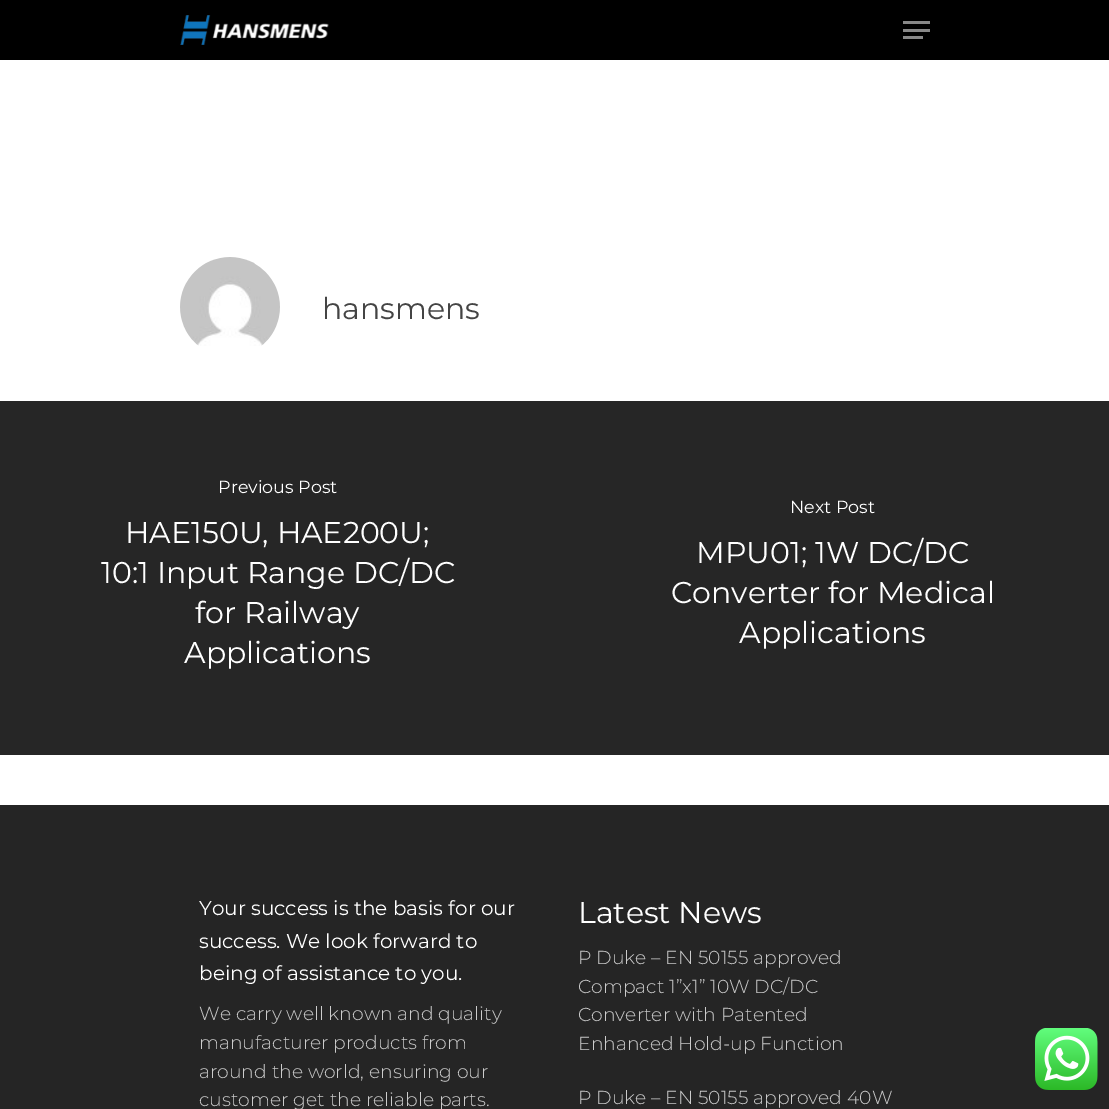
%!PS-Adobe-3.0
%%BoundingBox: 0 0 1109 1109
%%LanguageLevel: 3
%%Pages: 1
%%EndComments
%%BeginProlog
/fn { [ exch dup neg 0 0 3 -1 roll 0 0 ] selectfont } def
/tx { moveto show } def
/bx { rectfill } def
/im { 5 dict begin { /h /w /y /x /name } { exch def } forall
  gsave x y translate w h scale
  w h 8 [w 0 0 h 0 0] name (r) file false 3 colorimage grestore end } def
%%EndProlog
%%BeginSetup
<< /PageSize [1109 1109] >> setpagedevice
%%EndSetup
%%Page: 1 1
0 1109 translate 1 -1 scale
4 setmiterlimit
1 setgray
0 0 1109 1109 bx
0 setgray
0 0 1109 60 bx
(image0.raw) 180 15 149 30 im
0.533 setgray
903 21 27 3 bx
903 36 20 3 bx
903 29 27 3 bx
(image1.raw) 180 257 100 89 im
/Montserrat-Regular 30 fn
0.267 setgray
(hansmens) 322 319 tx
0.149 setgray
0 401 1109 354 bx
/Montserrat-Regular 17.5 fn
1 setgray
(Previous Post) 218 493 tx
/Montserrat-Regular 30 fn
(HAE150U, HAE200U;) 125 543 tx
(10:1 Input Range DC/DC) 101 583 tx
(for Railway) 195 623 tx
(Applications) 184 663 tx
/Montserrat-Regular 17.5 fn
(Next Post) 790 513 tx
/Montserrat-Regular 30 fn
(MPU01; 1W DC/DC) 696 563 tx
(Converter for Medical) 671 603 tx
(Applications) 739 643 tx
0.145 setgray
0 805 1109 304 bx
/Montserrat-Regular 20 fn
1 setgray
(Your success is the basis for our) 199 915 tx
(success. We look forward to) 199 948 tx
(being of assistance to you.) 199 980 tx
/Montserrat-Light 18.75 fn
0.8 setgray
(We carry well known and quality) 199 1020 tx
(manufacturer products from) 199 1049 tx
(around the world, ensuring our) 199 1078 tx
(customer get the reliable parts.) 199 1106 tx
/Montserrat-Regular 30 fn
1 setgray
(Latest News) 578 923 tx
/Montserrat-Light 18.75 fn
0.8 setgray
(P Duke – EN 50155 approved) 578 964 tx
(Compact 1”x1” 10W DC/DC) 578 993 tx
(Converter with Patented) 578 1021 tx
(Enhanced Hold-up Function) 578 1050 tx
(P Duke – EN 50155 approved 40W) 578 1104 tx
(image2.raw) 1035 1028 63 62 im
showpage
%%EOF
